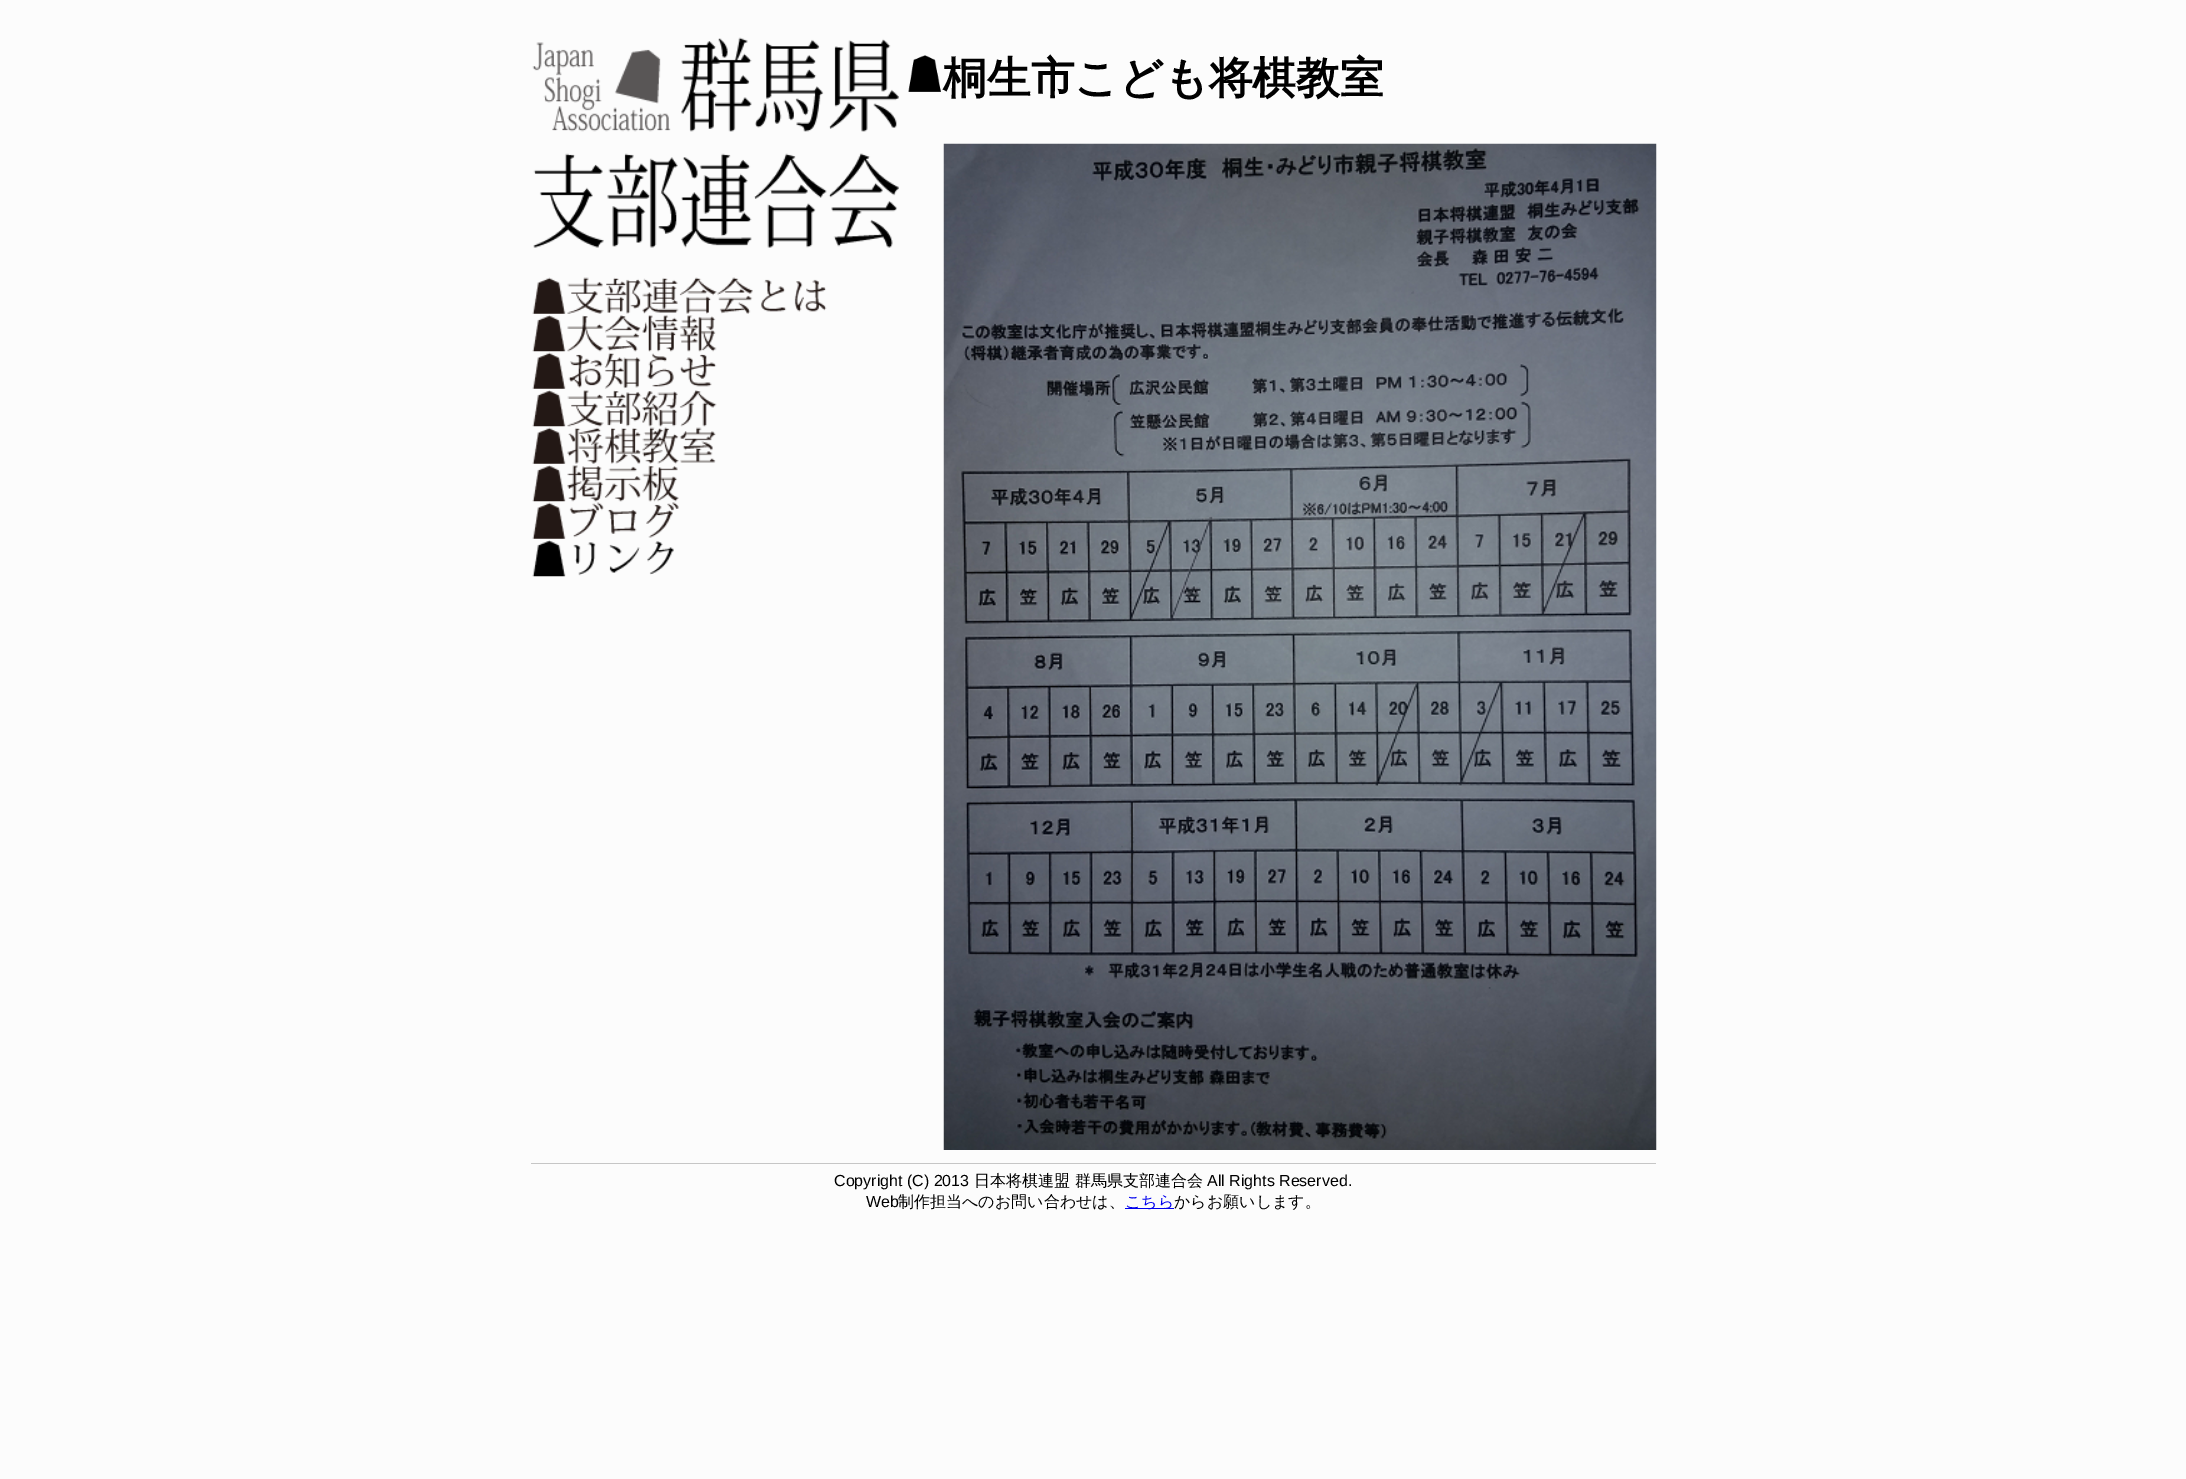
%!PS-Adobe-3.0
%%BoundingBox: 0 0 2186 1479
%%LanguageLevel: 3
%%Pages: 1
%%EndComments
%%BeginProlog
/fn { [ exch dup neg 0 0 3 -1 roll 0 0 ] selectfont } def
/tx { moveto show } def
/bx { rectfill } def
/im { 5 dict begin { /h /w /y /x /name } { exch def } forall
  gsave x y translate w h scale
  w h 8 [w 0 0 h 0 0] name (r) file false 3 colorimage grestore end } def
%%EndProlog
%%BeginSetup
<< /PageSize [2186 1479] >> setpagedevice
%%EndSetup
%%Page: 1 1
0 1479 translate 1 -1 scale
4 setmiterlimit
0.988 setgray
0 0 2186 1479 bx
(image0.raw) 532 37 367 211 im
(image1.raw) 532 277 295 37 im
(image2.raw) 532 315 185 37 im
(image3.raw) 532 352 185 37 im
(image4.raw) 532 390 185 37 im
(image5.raw) 532 427 184 37 im
(image6.raw) 532 465 147 37 im
(image7.raw) 532 502 147 37 im
(image8.raw) 532 540 142 37 im
(image9.raw) 908 55 33 37 im
/WenQuanYiZenHei-Bold 43.75 fn
0 setgray
(桐生市こども将棋教室) 943 93 tx
(image10.raw) 943 143 714 1007 im
0.776 setgray
531 1163 1125 1 bx
/LiberationSans-Regular 16 fn
0 setgray
(Copyright \(C\) 2013) 834 1186 tx
/WenQuanYiZenHei-Medium 16 fn
(日本将棋連盟) 974 1186 tx
(群馬県支部連合会) 1075 1186 tx
/LiberationSans-Regular 16 fn
(All Rights Reserved.) 1207 1186 tx
(Web) 866 1207 tx
/WenQuanYiZenHei-Medium 16 fn
(制作担当へのお問い合わせは、) 898 1207 tx
0 0 0.933 setrgbcolor
1125 1208 49 1 bx
(こちら) 1125 1207 tx
0 setgray
(からお願いします。) 1174 1207 tx
showpage
%%EOF
